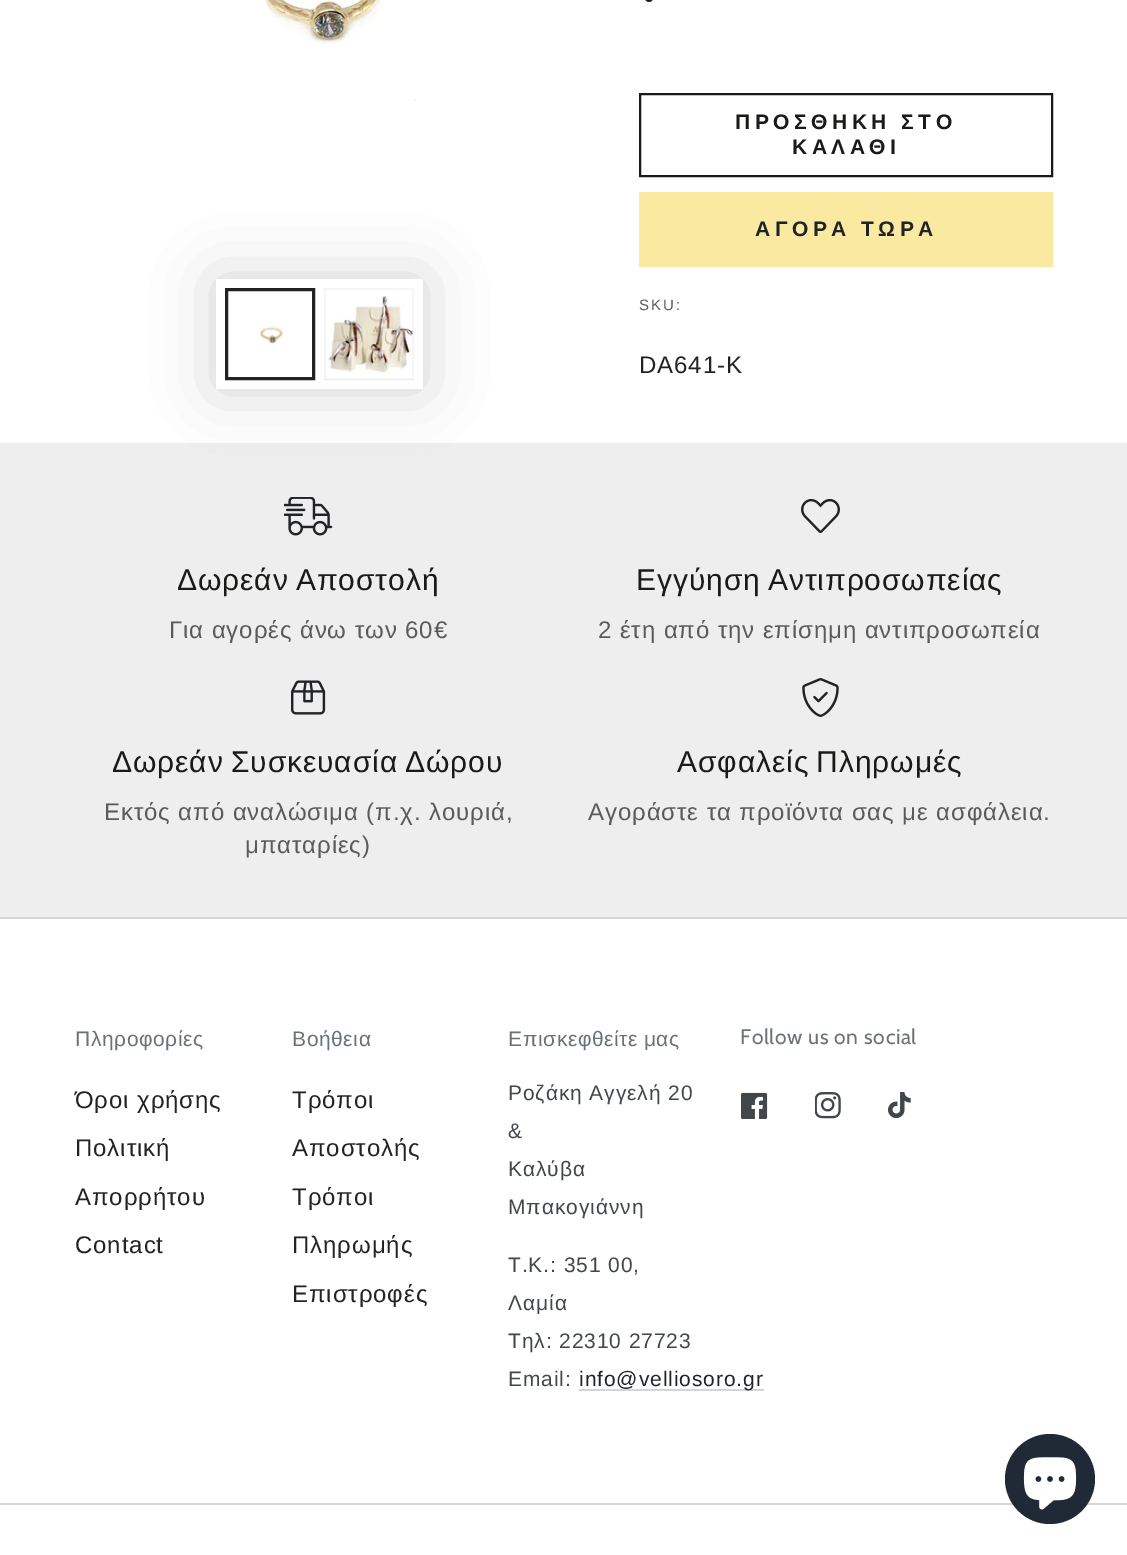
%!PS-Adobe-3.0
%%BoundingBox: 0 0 1127 1555
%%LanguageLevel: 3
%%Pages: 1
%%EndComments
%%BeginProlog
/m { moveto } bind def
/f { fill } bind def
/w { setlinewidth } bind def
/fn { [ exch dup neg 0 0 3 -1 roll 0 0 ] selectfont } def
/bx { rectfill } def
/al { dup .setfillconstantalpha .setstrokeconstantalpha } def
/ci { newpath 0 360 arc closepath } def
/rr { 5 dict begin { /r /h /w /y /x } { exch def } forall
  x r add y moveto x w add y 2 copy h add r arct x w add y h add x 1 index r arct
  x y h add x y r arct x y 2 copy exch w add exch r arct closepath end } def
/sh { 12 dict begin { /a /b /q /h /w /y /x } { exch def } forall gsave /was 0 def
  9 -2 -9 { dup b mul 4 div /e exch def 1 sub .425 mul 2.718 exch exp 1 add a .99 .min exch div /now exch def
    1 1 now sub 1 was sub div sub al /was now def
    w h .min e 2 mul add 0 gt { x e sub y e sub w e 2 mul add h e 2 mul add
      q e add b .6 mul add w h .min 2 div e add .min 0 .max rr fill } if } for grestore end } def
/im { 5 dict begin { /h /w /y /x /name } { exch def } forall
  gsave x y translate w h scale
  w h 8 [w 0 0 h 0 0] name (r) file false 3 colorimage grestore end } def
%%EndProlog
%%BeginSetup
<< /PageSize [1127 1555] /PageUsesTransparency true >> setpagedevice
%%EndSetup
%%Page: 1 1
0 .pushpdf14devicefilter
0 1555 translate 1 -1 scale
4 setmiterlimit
1 setgray
0 0 1127 1555 bx
(image0.raw) 75 0 489 234 im
0.933 setgray
0 443 1127 474 bx
0.129 0.137 0.149 setrgbcolor
216 279 207 110 0 30 0.2 sh
1 setgray
216 279 207 110 bx
(image1.raw) 228 291 84 86 im
0.129 0.137 0.149 setrgbcolor
3 w
226.5 289.5 87 89 rectstroke
0.953 setgray
324 379 90 1 bx
(image2.raw) 324 288 90 91 im
0.04 al
0.129 0.137 0.149 setrgbcolor
2 w
325 289 88 90 rectstroke
1 al
645 -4 8 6 4 rr f
0.102 0.106 0.094 setrgbcolor
640 94 412 82 rectstroke
/LiberationSans-Bold 21 fn
735 129 m 4.5 0 (ΠΡΟΣΘΗΚΗ ΣΤΟ) ashow
792 154 m 4.5 0 (ΚΑΛΑΘΙ) ashow
0.98 0.918 0.631 setrgbcolor
639 192 414 75 bx
0.129 0.137 0.149 setrgbcolor
755 236 m 4.5 0 (ΑΓΟΡΑ ΤΩΡΑ) ashow
/LiberationSans-Regular 15 fn
0.349 0.353 0.361 setrgbcolor
639 310 m 2 0 (SKU:) ashow
/LiberationSans-Regular 24 fn
0.129 0.137 0.149 setrgbcolor
639 373 m 0.9 0 (DA641-K) ashow
(image3.raw) 284 497 49 39 im
/LiberationSans-Regular 30 fn
0.102 0.106 0.094 setrgbcolor
177 590 m -2 0 32 0.9 0 (Δωρεάν Αποστολή) awidthshow
/LiberationSans-Regular 24 fn
0.349 0.353 0.361 setrgbcolor
169 638 m 0.9 0 (Για αγορές άνω των 60€) ashow
(image4.raw) 801 498 39 35 im
/LiberationSans-Regular 30 fn
0.102 0.106 0.094 setrgbcolor
636 590 m -2 0 32 0.9 0 (Εγγύηση Αντιπροσωπείας) awidthshow
/LiberationSans-Regular 24 fn
0.349 0.353 0.361 setrgbcolor
598 638 m 0.9 0 (2 έτη από την επίσημη αντιπροσωπεία) ashow
(image5.raw) 291 680 35 35 im
/LiberationSans-Regular 30 fn
0.102 0.106 0.094 setrgbcolor
112 772 m -2 0 32 0.9 0 (Δωρεάν Συσκευασία Δώρου) awidthshow
/LiberationSans-Regular 24 fn
0.349 0.353 0.361 setrgbcolor
104 820 m 0.9 0 (Εκτός από αναλώσιμα \(π.χ. λουριά,) ashow
245 853 m 0.9 0 (μπαταρίες\)) ashow
(image6.raw) 802 678 37 39 im
/LiberationSans-Regular 30 fn
0.102 0.106 0.094 setrgbcolor
677 772 m -2 0 32 0.9 0 (Ασφαλείς Πληρωμές) awidthshow
/LiberationSans-Regular 24 fn
0.349 0.353 0.361 setrgbcolor
588 820 m 0.9 0 (Αγοράστε τα προϊόντα σας με ασφάλεια.) ashow
0.824 0.835 0.851 setrgbcolor
0 917 1127 2 bx
/LiberationSans-Regular 21 fn
0.42 0.443 0.467 setrgbcolor
75 1046 m 0.6 0 (Πληροφορίες) ashow
/LiberationSans-Regular 24 fn
0.129 0.137 0.149 setrgbcolor
75 1108 m 0.9 0 (Όροι χρήσης) ashow
75 1156 m 0.9 0 (Πολιτική) ashow
75 1205 m 0.9 0 (Απορρήτου) ashow
75 1253 m 0.9 0 (Contact) ashow
/LiberationSans-Regular 21 fn
0.42 0.443 0.467 setrgbcolor
292 1046 m 0.6 0 (Βοήθεια) ashow
/LiberationSans-Regular 24 fn
0.129 0.137 0.149 setrgbcolor
292 1108 m 0.9 0 (Τρόποι) ashow
292 1156 m 0.9 0 (Αποστολής) ashow
292 1205 m 0.9 0 (Τρόποι) ashow
292 1253 m 0.9 0 (Πληρωμής) ashow
292 1302 m 0.9 0 (Επιστροφές) ashow
/LiberationSans-Regular 21 fn
0.42 0.443 0.467 setrgbcolor
508 1046 m -1 0 32 0.6 0 (Επισκεφθείτε μας) awidthshow
0.259 0.278 0.298 setrgbcolor
508 1100 m 0.9 0 (Ροζάκη Αγγελή 20) ashow
508 1138 m 0.9 0 (&) ashow
508 1176 m 0.9 0 (Καλύβα) ashow
508 1214 m 0.9 0 (Μπακογιάννη) ashow
508 1272 m 0.9 0 (Τ.Κ.: 351 00,) ashow
508 1310 m 0.9 0 (Λαμία) ashow
508 1348 m 0.9 0 (Τηλ: 22310 27723) ashow
508 1386 m 0.9 0 (Email:) ashow
0.824 0.835 0.851 setrgbcolor
579 1389 185 2 bx
0.129 0.137 0.149 setrgbcolor
579 1386 m 0.9 0 (info@velliosoro.gr) ashow
/Cabin-Regular 21 fn
0.42 0.443 0.467 setrgbcolor
740 1044 m 0.6 0 (Follow us on social) ashow
(image7.raw) 741 1092 27 27 im
(image8.raw) 815 1092 26 27 im
(image9.raw) 888 1092 23 27 im
0.824 0.835 0.851 setrgbcolor
0 1503 1127 2 bx
0.125 0.165 0.212 setrgbcolor
1050 1479 45 ci f
(image10.raw) 1023 1457 54 53 im
.poppdf14devicefilter showpage
%%EOF
